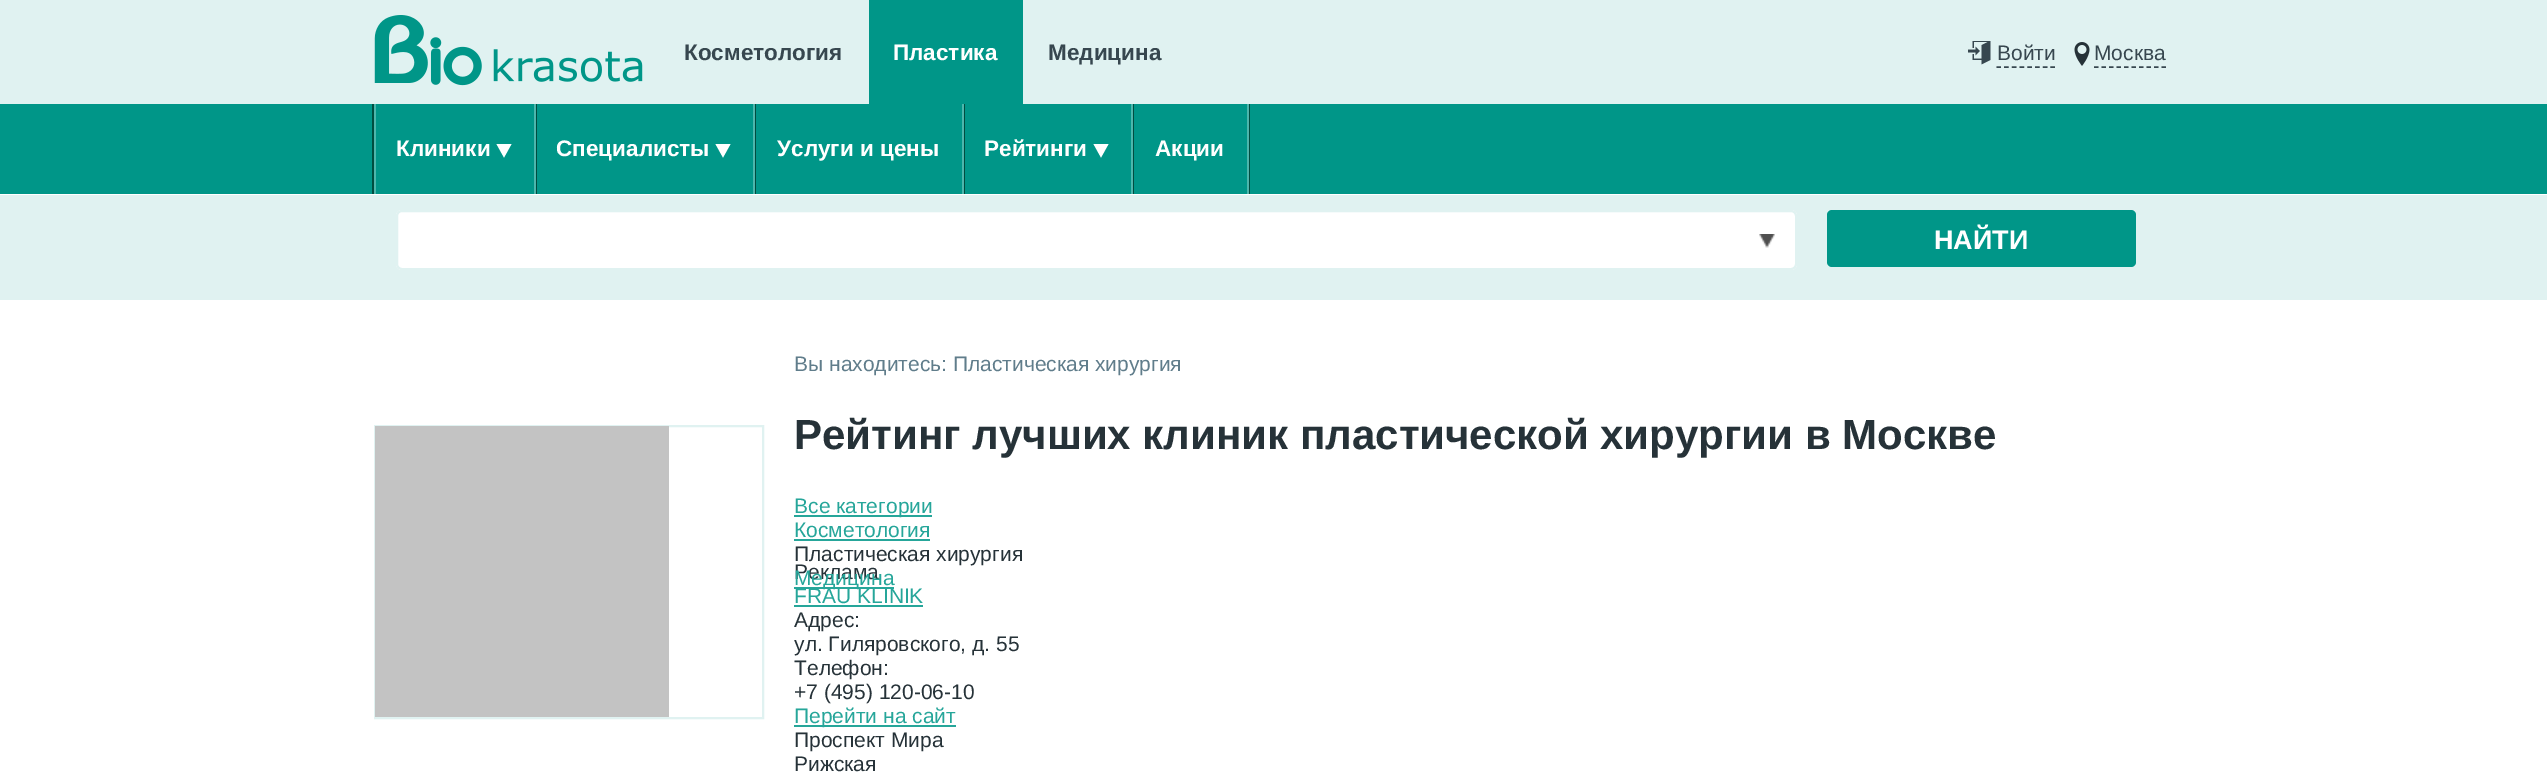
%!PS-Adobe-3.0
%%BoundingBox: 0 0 2547 774
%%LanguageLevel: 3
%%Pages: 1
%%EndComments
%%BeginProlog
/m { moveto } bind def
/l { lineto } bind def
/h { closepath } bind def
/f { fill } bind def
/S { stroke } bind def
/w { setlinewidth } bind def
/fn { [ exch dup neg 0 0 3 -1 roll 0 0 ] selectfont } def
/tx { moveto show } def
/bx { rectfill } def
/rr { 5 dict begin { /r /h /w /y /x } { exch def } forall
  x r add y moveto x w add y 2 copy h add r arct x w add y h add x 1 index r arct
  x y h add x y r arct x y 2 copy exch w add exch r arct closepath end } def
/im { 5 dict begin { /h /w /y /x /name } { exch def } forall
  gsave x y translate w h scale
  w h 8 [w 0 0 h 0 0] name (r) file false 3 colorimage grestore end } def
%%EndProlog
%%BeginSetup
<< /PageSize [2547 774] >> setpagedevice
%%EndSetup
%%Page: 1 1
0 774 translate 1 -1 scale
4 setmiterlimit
1 setgray
0 0 2547 774 bx
0.878 0.949 0.945 setrgbcolor
0 0 2547 104 bx
(image0.raw) 374 15 269 71 im
/LiberationSans-Bold 22.5 fn
0.216 0.278 0.31 setrgbcolor
(Косметология) 684 60 tx
0 0.588 0.533 setrgbcolor
869 0 154 104 bx
1 setgray
(Пластика) 893 60 tx
0.216 0.278 0.31 setrgbcolor
(Медицина) 1048 60 tx
(image1.raw) 1968 41 23 24 im
1.5 w
[4.5 3.21] 0 setdash
1996.5 67 m 2055 67 l S
/LiberationSans-Regular 21 fn
(Войти) 1997 60 tx
(image2.raw) 2074 42 16 24 im
[4.5 3] 0 setdash
2094 67 m 2166 67 l S
(Москва) 2094 60 tx
0 0.588 0.533 setrgbcolor
0 104 2547 90 bx
0 0.302 0.251 setrgbcolor
375 194 m 537 194 l 537 104 l 536 104 l 536 194 l h f
372 104 m 372 194 l 534 194 l 374 194 l 374 104 l h f
0.302 0.714 0.675 setrgbcolor
534 104 2 90 bx
374 104 2 90 bx
/LiberationSans-Bold 22.5 fn
1 setgray
(Клиники) 396 156 tx
496.5 144 m 511.5 144 l 504 157.5 l h f
0 0.302 0.251 setrgbcolor
537 194 m 756 194 l 756 104 l 754 104 l 754 194 l h f
0.302 0.714 0.675 setrgbcolor
753 104 2 90 bx
1 setgray
(Специалисты) 556 156 tx
715.5 144 m 730.5 144 l 723 157.5 l h f
0 0.302 0.251 setrgbcolor
756 194 m 965 194 l 965 104 l 963 104 l 963 194 l h f
0.302 0.714 0.675 setrgbcolor
962 104 2 90 bx
1 setgray
(Услуги и цены) 777 156 tx
0 0.302 0.251 setrgbcolor
965 194 m 1134 194 l 1134 104 l 1132 104 l 1132 194 l h f
0.302 0.714 0.675 setrgbcolor
1131 104 2 90 bx
1 setgray
(Рейтинги) 984 156 tx
1093.5 144 m 1108.5 144 l 1101 157.5 l h f
0 0.302 0.251 setrgbcolor
1134 194 m 1250 194 l 1250 104 l 1248 104 l 1248 194 l h f
0.302 0.714 0.675 setrgbcolor
1247 104 2 90 bx
1 setgray
(Акции) 1155 156 tx
0.878 0.949 0.945 setrgbcolor
0 195 2547 105 bx
1 setgray
396 210 1401 60 6 rr f
(image3.raw) 1759 234 16 14 im
0.878 0.949 0.945 setrgbcolor
2 w
[] 0 setdash
397 211 1399 58 5 rr S
0 0.588 0.533 setrgbcolor
1827 210 309 57 5 rr f
/LiberationSans-Bold 27 fn
1 setgray
(НАЙТИ) 1934 249 tx
0.878 0.949 0.945 setrgbcolor
375 426 388 292 rectstroke
0.765 setgray
375 426 294 291 bx
/LiberationSans-Regular 21 fn
0.376 0.49 0.545 setrgbcolor
(Вы находитесь: Пластическая хирургия) 794 371 tx
/LiberationSans-Bold 42 fn
0.149 0.196 0.22 setrgbcolor
(Рейтинг лучших клиник пластической хирургии в Москве) 794 449 tx
0.149 0.651 0.604 setrgbcolor
794 515 138 2 bx
/LiberationSans-Regular 21 fn
(Все категории) 794 513 tx
(Косметология) 794 537 tx
794 539 136 2 bx
0.149 0.196 0.22 setrgbcolor
(Пластическая хирургия) 794 561 tx
0.149 0.651 0.604 setrgbcolor
794 587 100 2 bx
0.149 0.196 0.22 setrgbcolor
(Реклама) 794 579 tx
0.149 0.651 0.604 setrgbcolor
(Медицина) 794 585 tx
(FRAU KLINIK) 794 603 tx
794 605 129 2 bx
0.149 0.196 0.22 setrgbcolor
(Адрес:) 794 627 tx
(ул. Гиляровского, д. 55) 794 651 tx
(Телефон:) 794 675 tx
(+7 \(495\) 120-06-10) 794 699 tx
0.149 0.651 0.604 setrgbcolor
794 725 162 2 bx
(Перейти на сайт) 794 723 tx
0.149 0.196 0.22 setrgbcolor
(Проспект Мира) 794 747 tx
(Рижская) 794 771 tx
showpage
%%EOF
